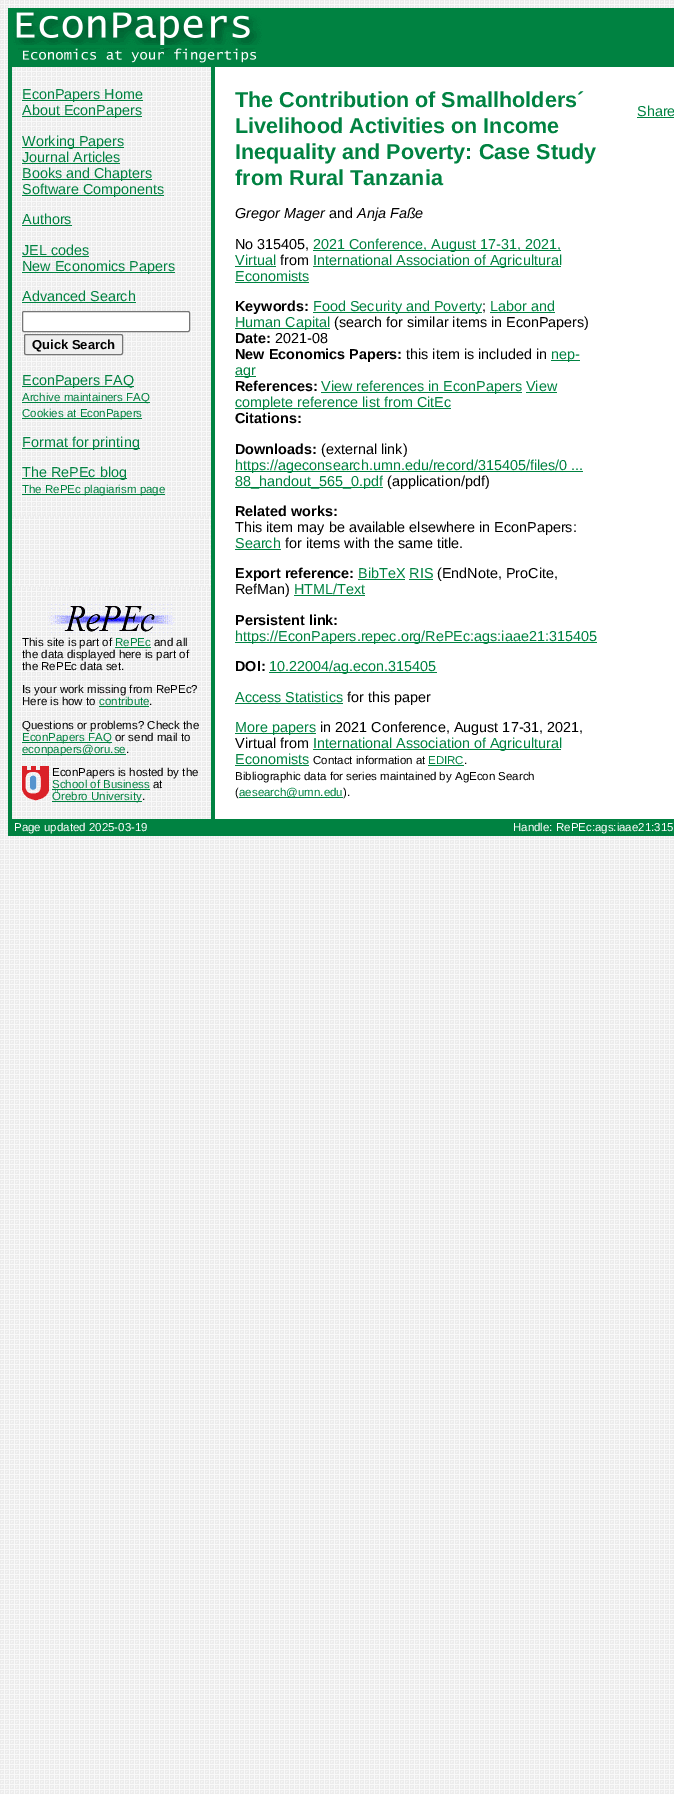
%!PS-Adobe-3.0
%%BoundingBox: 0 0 674 1794
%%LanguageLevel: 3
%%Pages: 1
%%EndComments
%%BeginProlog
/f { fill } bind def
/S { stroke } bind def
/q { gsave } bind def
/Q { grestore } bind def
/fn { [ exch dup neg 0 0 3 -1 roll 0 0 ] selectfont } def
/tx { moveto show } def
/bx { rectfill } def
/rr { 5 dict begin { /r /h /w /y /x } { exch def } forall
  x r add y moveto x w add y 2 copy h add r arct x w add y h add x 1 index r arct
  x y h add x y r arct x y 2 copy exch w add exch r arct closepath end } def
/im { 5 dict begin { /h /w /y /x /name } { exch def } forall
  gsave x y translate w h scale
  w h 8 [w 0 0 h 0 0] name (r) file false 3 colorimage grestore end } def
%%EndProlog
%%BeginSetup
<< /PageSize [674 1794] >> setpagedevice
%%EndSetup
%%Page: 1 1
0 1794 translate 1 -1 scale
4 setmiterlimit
1 setgray
0 0 674 1794 bx
(image0.raw) 0 0 674 1794 im
0 0.51 0.255 setrgbcolor
8 8 4 828 bx
12 8 662 40 bx
(image1.raw) 13 10 249 35 im
12 48 662 19 bx
(image2.raw) 18 48 239 15 im
(image3.raw) 12 67 199 449 im
22 100 121 1 bx
/LiberationSans-Regular 14.4 fn
(EconPapers Home) 22 99 tx
22 116 120 1 bx
(About EconPapers) 22 115 tx
22 147 102 1 bx
(Working Papers) 22 146 tx
(Journal Articles) 22 162 tx
22 163 98 1 bx
22 179 130 1 bx
(Books and Chapters) 22 178 tx
22 195 142 1 bx
(Software Components) 22 194 tx
(Authors) 22 224 tx
22 225 50 1 bx
(JEL codes) 22 255 tx
22 256 67 1 bx
22 272 153 1 bx
(New Economics Papers) 22 271 tx
(Advanced Search) 22 301 tx
22 302 114 1 bx
1 setgray
22.5 311.5 167 20 1.5 rr q f Q
0.463 setgray
S
0.937 setgray
24.5 334.5 98 20 1.5 rr q f Q
0.463 setgray
S
/LiberationSans-Bold 13 fn
0 setgray
(Quick Search) 32 349 tx
0 0.51 0.255 setrgbcolor
22 386 112 1 bx
/LiberationSans-Regular 14.4 fn
(EconPapers FAQ) 22 385 tx
22 402 128 1 bx
/LiberationSans-Regular 11.5 fn
(Archive maintainers FAQ) 22 401 tx
22 418 120 1 bx
(Cookies at EconPapers) 22 417 tx
22 448 118 1 bx
/LiberationSans-Regular 14.4 fn
(Format for printing) 22 447 tx
22 478 105 1 bx
(The RePEc blog) 22 477 tx
22 494 143 1 bx
/LiberationSans-Regular 11.5 fn
(The RePEc plagiarism page) 22 493 tx
211 67 4 752 bx
1 setgray
215 67 459 752 bx
/LiberationSans-Bold 21.6 fn
0 0.51 0.255 setrgbcolor
(The Contribution of Smallholders´) 235 107 tx
(Livelihood Activities on Income) 235 133 tx
(Inequality and Poverty: Case Study) 235 159 tx
(from Rural Tanzania) 235 185 tx
/LiberationSans-Italic 14.4 fn
0 setgray
(Gregor Mager) 235 218 tx
/LiberationSans-Regular 14.4 fn
(and) 329 218 tx
/LiberationSans-Italic 14.4 fn
(Anja Faße) 357 218 tx
/LiberationSans-Regular 14.4 fn
(No 315405,) 235 249 tx
0 0.51 0.255 setrgbcolor
313 250 248 1 bx
(2021 Conference, August 17-31, 2021,) 313 249 tx
(Virtual) 235 265 tx
235 266 41 1 bx
0 setgray
(from) 280 265 tx
0 0.51 0.255 setrgbcolor
313 266 248 1 bx
(International Association of Agricultural) 313 265 tx
(Economists) 235 281 tx
235 282 74 1 bx
/LiberationSans-Bold 14.4 fn
0 setgray
(Keywords:) 235 311 tx
0 0.51 0.255 setrgbcolor
313 312 169 1 bx
/LiberationSans-Regular 14.4 fn
(Food Security and Poverty) 313 311 tx
0 setgray
(;) 482 311 tx
0 0.51 0.255 setrgbcolor
(Labor and) 490 311 tx
490 312 65 1 bx
235 328 95 1 bx
(Human Capital) 235 327 tx
0 setgray
(\(search for similar items in EconPapers\)) 334 327 tx
/LiberationSans-Bold 14.4 fn
(Date:) 235 343 tx
/LiberationSans-Regular 14.4 fn
(2021-08) 275 343 tx
/LiberationSans-Bold 14.4 fn
(New Economics Papers:) 235 359 tx
/LiberationSans-Regular 14.4 fn
(this item is included in) 406 359 tx
0 0.51 0.255 setrgbcolor
551 360 29 1 bx
(nep-) 551 359 tx
235 376 21 1 bx
(agr) 235 375 tx
/LiberationSans-Bold 14.4 fn
0 setgray
(References:) 235 391 tx
0 0.51 0.255 setrgbcolor
321 392 201 1 bx
/LiberationSans-Regular 14.4 fn
(View references in EconPapers View) 321 391 tx
235 408 216 1 bx
(complete reference list from CitEc) 235 407 tx
526 392 31 1 bx
/LiberationSans-Bold 14.4 fn
0 setgray
(Citations:) 235 423 tx
(Downloads:) 235 454 tx
/LiberationSans-Regular 14.4 fn
(\(external link\)) 321 454 tx
0 0.51 0.255 setrgbcolor
235 471 348 1 bx
(https://ageconsearch.umn.edu/record/315405/files/0 ...) 235 470 tx
235 487 148 1 bx
(88_handout_565_0.pdf) 235 486 tx
0 setgray
(\(application/pdf\)) 387 486 tx
/LiberationSans-Bold 14.4 fn
(Related works:) 235 516 tx
/LiberationSans-Regular 14.4 fn
(This item may be available elsewhere in EconPapers:) 235 532 tx
0 0.51 0.255 setrgbcolor
(Search) 235 548 tx
235 549 46 1 bx
0 setgray
(for items with the same title.) 285 548 tx
/LiberationSans-Bold 14.4 fn
(Export reference:) 235 578 tx
/LiberationSans-Regular 14.4 fn
0 0.51 0.255 setrgbcolor
(BibTeX RIS) 358 578 tx
358 579 47 1 bx
0 setgray
(\(EndNote, ProCite,) 437 578 tx
0 0.51 0.255 setrgbcolor
409 579 24 1 bx
0 setgray
(RefMan\)) 235 594 tx
0 0.51 0.255 setrgbcolor
(HTML/Text) 294 594 tx
294 595 71 1 bx
/LiberationSans-Bold 14.4 fn
0 setgray
(Persistent link:) 235 625 tx
0 0.51 0.255 setrgbcolor
235 642 362 1 bx
/LiberationSans-Regular 14.4 fn
(https://EconPapers.repec.org/RePEc:ags:iaae21:315405) 235 641 tx
/LiberationSans-Bold 14.4 fn
0 setgray
(DOI:) 235 671 tx
0 0.51 0.255 setrgbcolor
269 672 168 1 bx
/LiberationSans-Regular 14.4 fn
(10.22004/ag.econ.315405) 269 671 tx
(Access Statistics) 235 702 tx
235 703 108 1 bx
0 setgray
(for this paper) 347 702 tx
0 0.51 0.255 setrgbcolor
235 733 81 1 bx
(More papers) 235 732 tx
0 setgray
(in 2021 Conference, August 17-31, 2021,) 320 732 tx
(Virtual from) 235 748 tx
0 0.51 0.255 setrgbcolor
313 749 248 1 bx
(International Association of Agricultural) 313 748 tx
(Economists) 235 764 tx
235 765 74 1 bx
/LiberationSans-Regular 11.5 fn
0 setgray
(Contact information at) 313 764 tx
0 0.51 0.255 setrgbcolor
(EDIRC) 428 764 tx
0 setgray
(.) 464 764 tx
0 0.51 0.255 setrgbcolor
428 765 36 1 bx
0 setgray
(Bibliographic data for series maintained by AgEcon Search) 235 780 tx
(\() 235 796 tx
0 0.51 0.255 setrgbcolor
239 797 104 1 bx
(aesearch@umn.edu) 239 796 tx
0 setgray
(\).) 343 796 tx
/LiberationSans-Regular 14.4 fn
0 0.51 0.255 setrgbcolor
(Share) 637 116 tx
637 117 37 1 bx
(image4.raw) 12 587 199 232 im
(image5.raw) 48 604 127 29 im
/LiberationSans-Regular 11.5 fn
0 setgray
(This site is part of) 22 646 tx
0 0.51 0.255 setrgbcolor
(RePEc) 115 646 tx
115 647 36 1 bx
0 setgray
(and all) 154 646 tx
(the data displayed here is part of) 22 658 tx
(the RePEc data set.) 22 670 tx
(Is your work missing from RePEc?) 22 693 tx
(Here is how to) 22 705 tx
0 0.51 0.255 setrgbcolor
(contribute) 99 705 tx
99 706 50 1 bx
0 setgray
(.) 149 705 tx
(Questions or problems? Check the) 22 729 tx
0 0.51 0.255 setrgbcolor
22 742 90 1 bx
(EconPapers FAQ) 22 741 tx
0 setgray
(or send mail to) 115 741 tx
0 0.51 0.255 setrgbcolor
22 754 104 1 bx
(econpapers@oru.se) 22 753 tx
0 setgray
(.) 126 753 tx
(image6.raw) 22 766 27 35 im
(EconPapers is hosted by the) 52 776 tx
0 0.51 0.255 setrgbcolor
(School of Business) 52 788 tx
52 789 98 1 bx
0 setgray
(at) 153 788 tx
0 0.51 0.255 setrgbcolor
52 801 90 1 bx
(Örebro University) 52 800 tx
0 setgray
(.) 142 800 tx
0 0.51 0.255 setrgbcolor
12 819 662 17 bx
1 setgray
(Page updated 2025-03-19) 14 831 tx
(Handle: RePEc:ags:iaae21:315) 513 831 tx
showpage
%%EOF
